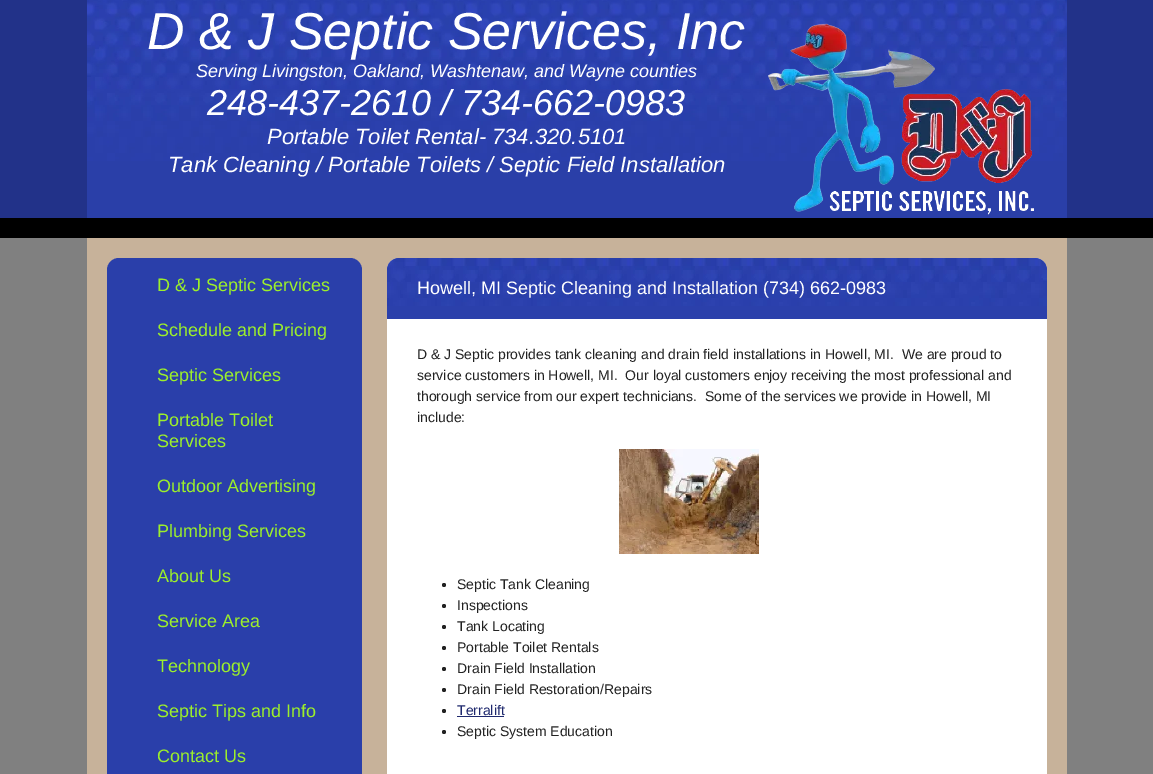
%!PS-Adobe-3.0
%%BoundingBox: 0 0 1153 774
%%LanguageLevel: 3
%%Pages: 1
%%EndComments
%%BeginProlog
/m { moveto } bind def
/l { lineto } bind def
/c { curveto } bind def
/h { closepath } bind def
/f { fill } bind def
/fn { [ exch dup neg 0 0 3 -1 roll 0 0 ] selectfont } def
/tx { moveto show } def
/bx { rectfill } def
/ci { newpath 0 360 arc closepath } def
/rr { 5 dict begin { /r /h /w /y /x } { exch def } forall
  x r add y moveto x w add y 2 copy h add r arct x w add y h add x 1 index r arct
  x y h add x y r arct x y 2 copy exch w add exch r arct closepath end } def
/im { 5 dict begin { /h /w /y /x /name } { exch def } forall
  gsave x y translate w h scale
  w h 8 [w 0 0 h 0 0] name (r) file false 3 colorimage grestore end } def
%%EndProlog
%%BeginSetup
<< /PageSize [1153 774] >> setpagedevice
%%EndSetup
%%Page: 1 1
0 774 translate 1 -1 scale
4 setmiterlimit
0.502 setgray
0 0 1153 774 bx
0.133 0.196 0.537 setrgbcolor
0 0 1153 218 bx
0 setgray
0 218 1153 20 bx
0.165 0.247 0.659 setrgbcolor
87 161 980 57 bx
(image0.raw) 87 0 980 161 im
/LiberationSans-Italic 52 fn
1 setgray
(D & J Septic Services, Inc) 147 49 tx
/LiberationSans-Italic 18 fn
(Serving Livingston, Oakland, Washtenaw, and Wayne counties) 196 77 tx
/LiberationSans-Italic 36 fn
(248-437-2610 / 734-662-0983) 207 115 tx
/LiberationSans-Italic 22 fn
(Portable Toilet Rental- 734.320.5101) 267 144 tx
(Tank Cleaning / Portable Toilets / Septic Field Installation) 168 172 tx
0.78 0.698 0.604 setrgbcolor
87 238 980 536 bx
(image1.raw) 768 23 266 192 im
0.165 0.247 0.667 setrgbcolor
107 258 255 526 12 rr f
/LiberationSans-Regular 18 fn
0.612 0.937 0.169 setrgbcolor
(D & J Septic Services) 157 291 tx
(Schedule and Pricing) 157 336 tx
(Septic Services) 157 381 tx
(Portable Toilet) 157 426 tx
(Services) 157 447 tx
(Outdoor Advertising) 157 492 tx
(Plumbing Services) 157 537 tx
(About Us) 157 582 tx
(Service Area) 157 627 tx
(Technology) 157 672 tx
(Septic Tips and Info) 157 717 tx
(Contact Us) 157 762 tx
1 setgray
387 258 660 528 12 rr f
0.169 0.251 0.671 setrgbcolor
399 258 m 1035 258 l 1041.5 258 1047 263.5 1047 270 c 1047 319 l 387 319 l 387 270 l 387 263.5 392.5 258 399 258 c h f
(image2.raw) 387 258 660 48 im
1 setgray
(Howell, MI Septic Cleaning and Installation \(734\) 662-0983) 417 294 tx
/LiberationSans-Regular 14 fn
0.133 setgray
(D & J Septic provides tank cleaning and drain field installations in Howell, MI.  We are proud to) 417 359 tx
(service customers in Howell, MI.  Our loyal customers enjoy receiving the most professional and) 417 380 tx
(thorough service from our expert technicians.  Some of the services we provide in Howell, MI) 417 401 tx
(include:) 417 422 tx
(image3.raw) 619 449 140 105 im
444 585 2 ci f
(Septic Tank Cleaning) 457 589 tx
444 606 2 ci f
(Inspections) 457 610 tx
444 627 2 ci f
(Tank Locating) 457 631 tx
444 648 2 ci f
(Portable Toilet Rentals) 457 652 tx
444 669 2 ci f
(Drain Field Installation) 457 673 tx
444 690 2 ci f
(Drain Field Restoration/Repairs) 457 694 tx
444 711 2 ci f
0.118 0.157 0.427 setrgbcolor
(Terralift) 457 715 tx
457 716 47 1 bx
0.133 setgray
444 732 2 ci f
(Septic System Education) 457 736 tx
showpage
%%EOF
